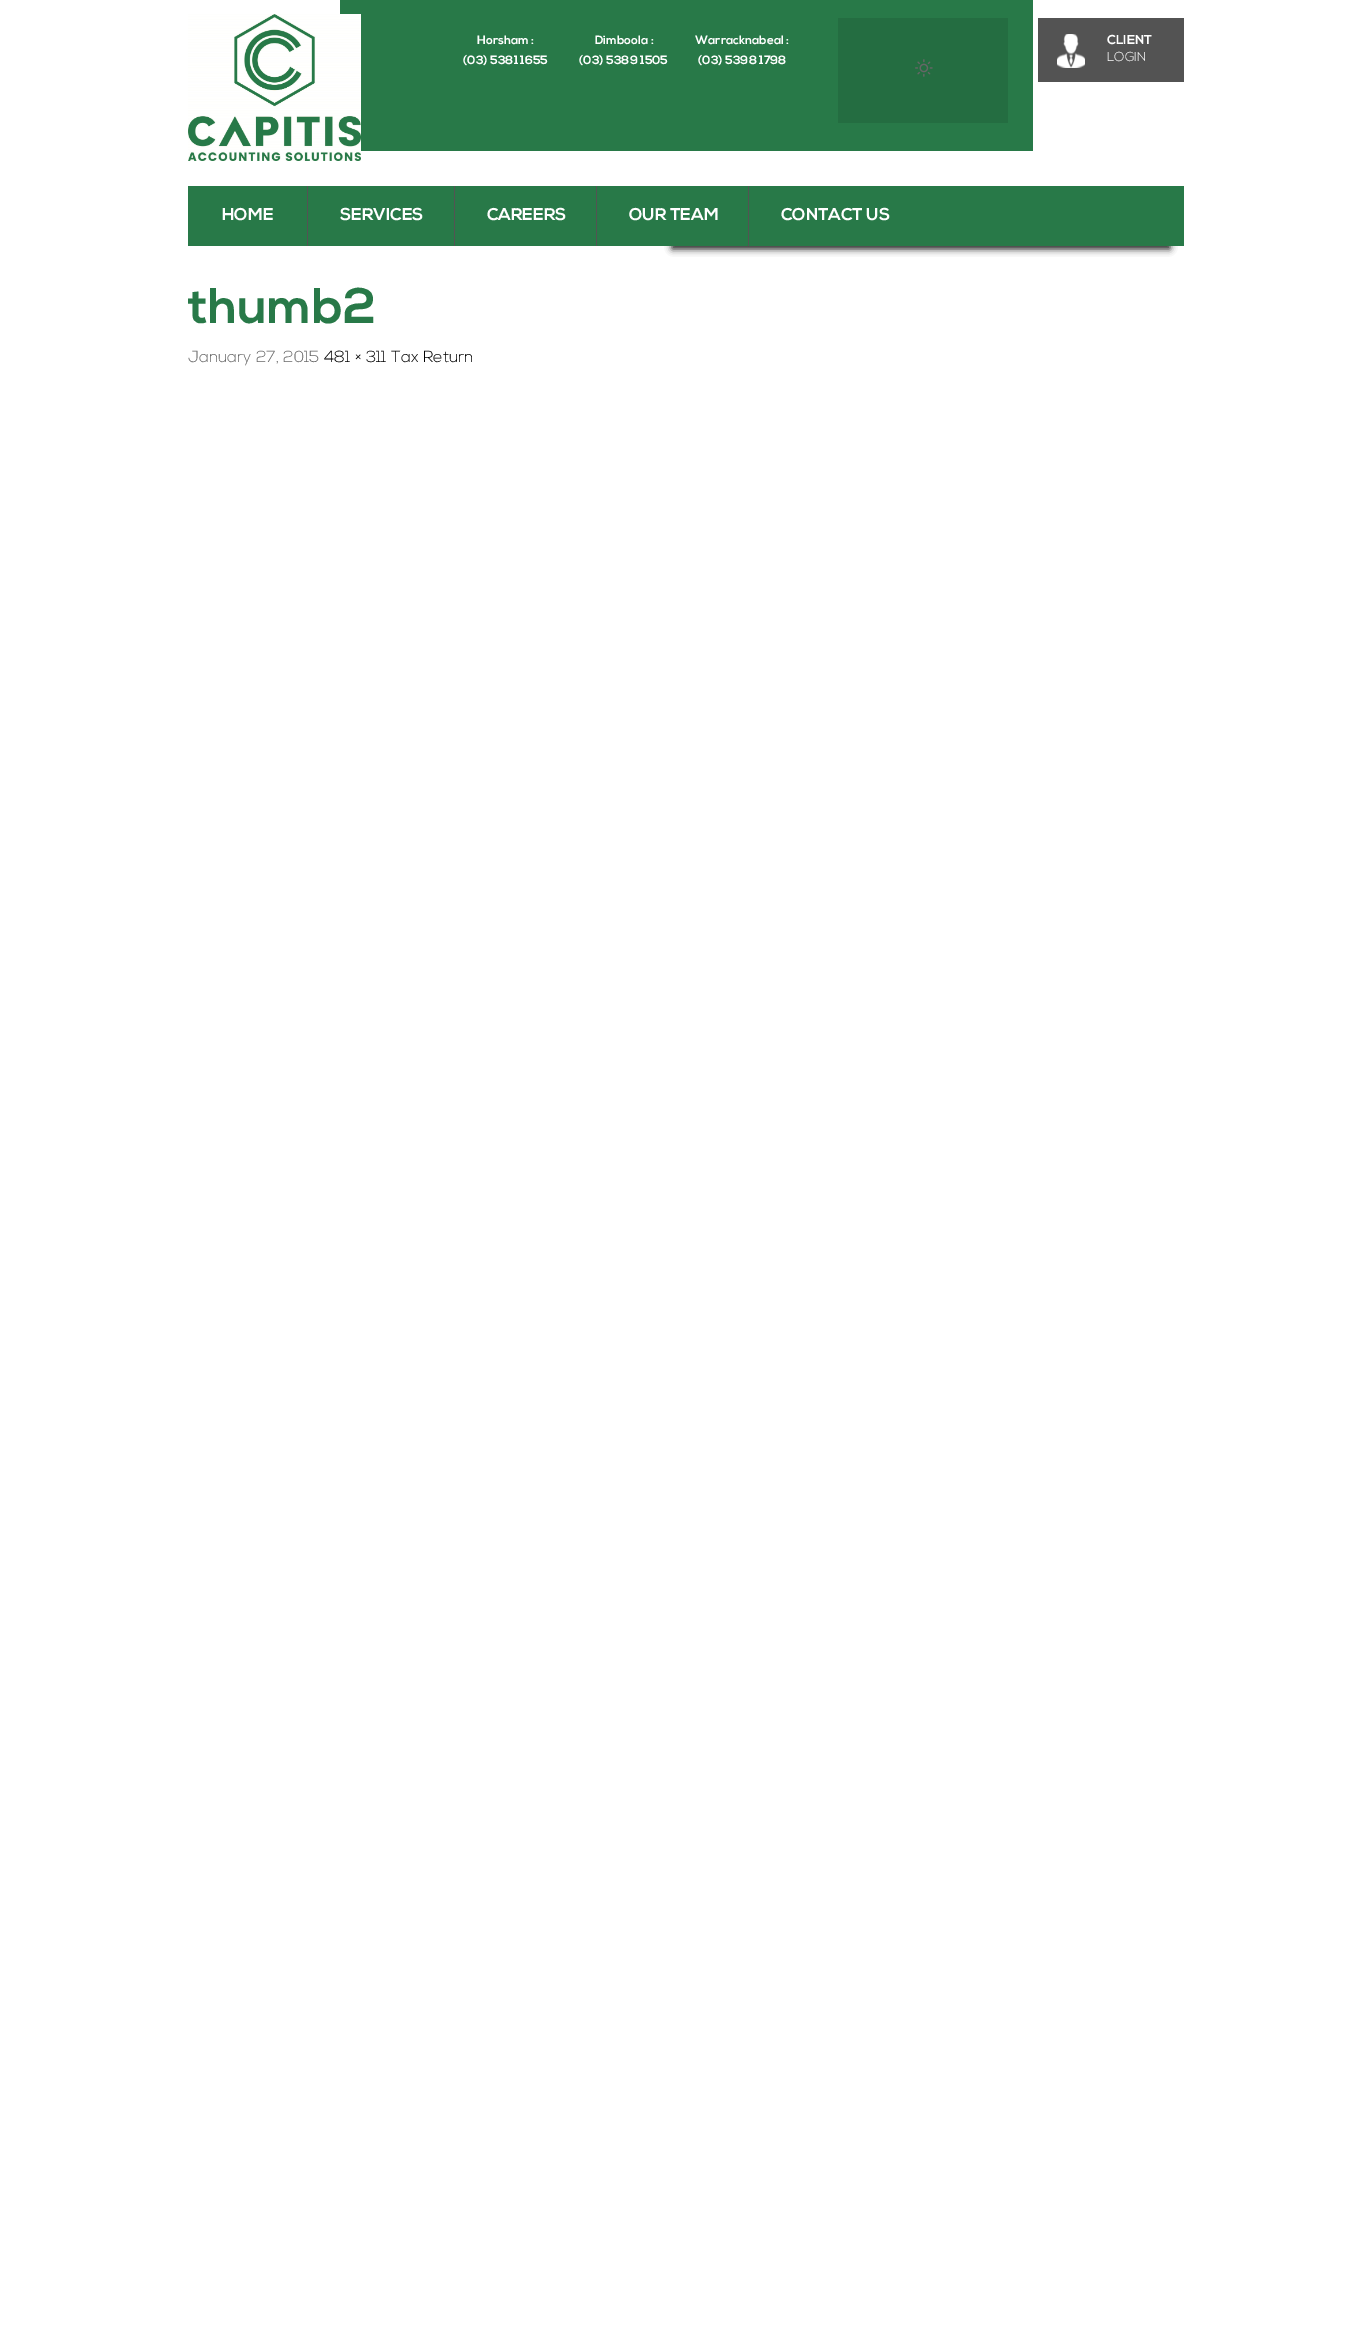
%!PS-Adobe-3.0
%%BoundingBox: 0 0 1372 2347
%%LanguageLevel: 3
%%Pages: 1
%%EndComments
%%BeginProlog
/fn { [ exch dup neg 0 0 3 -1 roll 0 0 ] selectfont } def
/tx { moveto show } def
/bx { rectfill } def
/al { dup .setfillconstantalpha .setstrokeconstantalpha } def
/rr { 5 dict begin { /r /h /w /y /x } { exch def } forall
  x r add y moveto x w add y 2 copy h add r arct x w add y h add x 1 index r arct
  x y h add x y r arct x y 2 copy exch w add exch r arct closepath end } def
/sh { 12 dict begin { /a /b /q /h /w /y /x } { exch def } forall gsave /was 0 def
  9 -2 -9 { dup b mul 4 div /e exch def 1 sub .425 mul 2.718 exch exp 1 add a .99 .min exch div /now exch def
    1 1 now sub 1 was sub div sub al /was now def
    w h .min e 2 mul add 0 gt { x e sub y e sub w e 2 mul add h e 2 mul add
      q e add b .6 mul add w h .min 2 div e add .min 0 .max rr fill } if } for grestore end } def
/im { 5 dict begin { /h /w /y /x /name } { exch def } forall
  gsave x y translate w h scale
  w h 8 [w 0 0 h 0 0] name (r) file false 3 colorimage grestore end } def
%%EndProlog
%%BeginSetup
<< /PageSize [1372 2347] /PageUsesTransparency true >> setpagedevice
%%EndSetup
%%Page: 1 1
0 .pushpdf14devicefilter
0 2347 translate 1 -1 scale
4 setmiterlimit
1 setgray
0 0 1372 2347 bx
0.157 0.475 0.282 setrgbcolor
340 0 693 151 bx
(image0.raw) 188 14 173 147 im
/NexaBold-Bold 12 fn
1 setgray
(Horsham :) 477 44 tx
(\(03\) 5381 1655) 463 64 tx
(Dimboola :) 595 44 tx
(\(03\) 5389 1505) 579 64 tx
(Warracknabeal :) 695 44 tx
(\(03\) 5398 1798) 698 64 tx
0.141 0.427 0.255 setrgbcolor
838 18 170 105 bx
(image1.raw) 915 59 18 18 im
0.325 setgray
1038 18 146 64 bx
(image2.raw) 1057 34 28 34 im
/NexaBold-Bold 13 fn
1 setgray
(CLIENT) 1107 44 tx
/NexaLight-Light 13 fn
(LOGIN) 1107 61 tx
0.11 setgray
672 231 498 18 0 3.5 1 sh
0.157 0.475 0.282 setrgbcolor
188 186 996 60 bx
/NexaBold-Bold 17 fn
1 setgray
(HOME) 222 220 tx
0.325 setgray
307 186 1 60 bx
1 setgray
(SERVICES) 340 220 tx
0.325 setgray
454 186 1 60 bx
1 setgray
(CAREERS) 487 220 tx
0.325 setgray
596 186 1 60 bx
1 setgray
(OUR TEAM) 629 220 tx
0.325 setgray
748 186 1 60 bx
1 setgray
(CONTACT US) 781 220 tx
/NexaBold-Bold 50 fn
0.157 0.475 0.282 setrgbcolor
(thumb2) 188 323 tx
/NexaLight-Light 16 fn
0.4 setgray
(January 27, 2015) 188 362 tx
0 setgray
(481 × 311 Tax Return) 324 362 tx
.poppdf14devicefilter showpage
%%EOF
